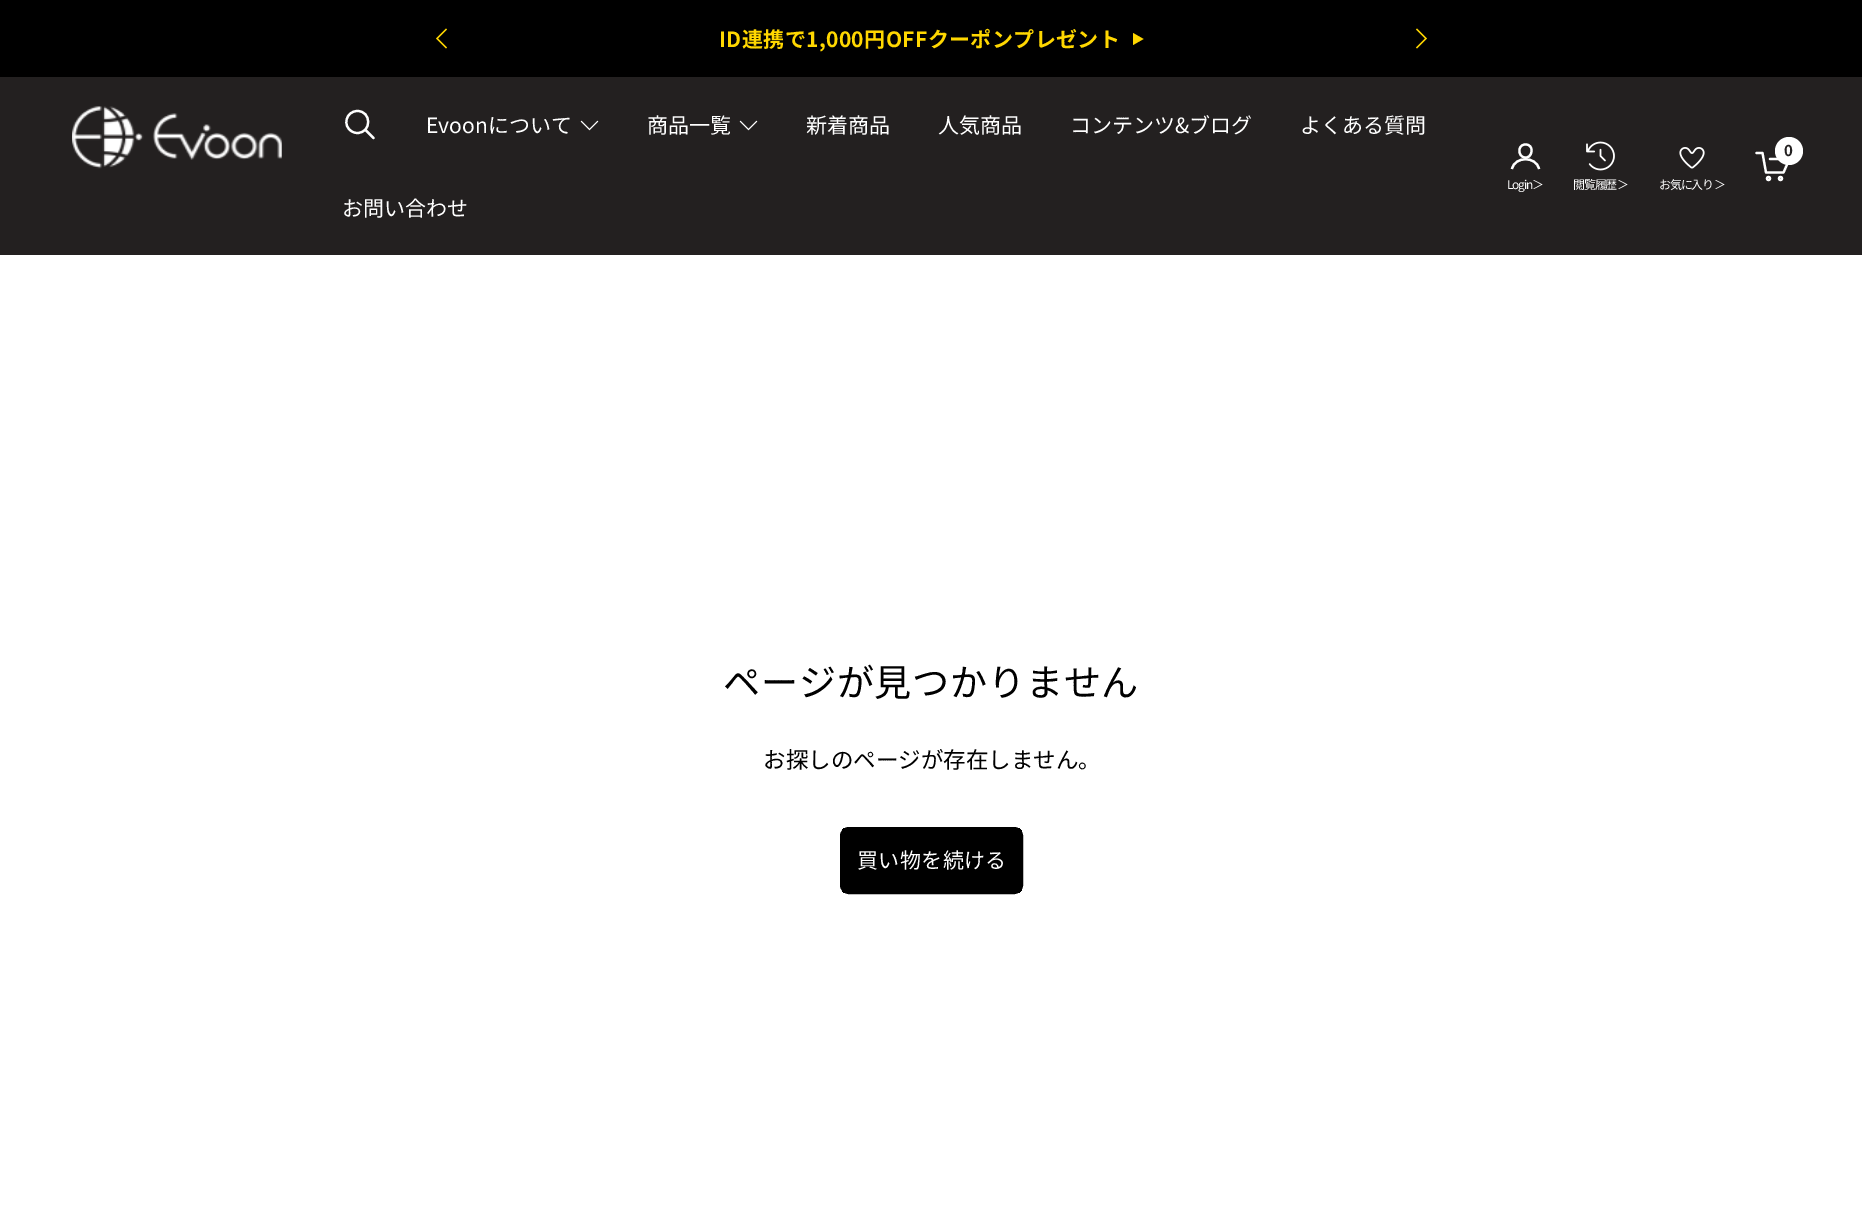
%!PS-Adobe-3.0
%%BoundingBox: 0 0 1862 1225
%%LanguageLevel: 3
%%Pages: 1
%%EndComments
%%BeginProlog
/m { moveto } bind def
/l { lineto } bind def
/c { curveto } bind def
/h { closepath } bind def
/f { fill } bind def
/S { stroke } bind def
/q { gsave } bind def
/Q { grestore } bind def
/w { setlinewidth } bind def
/fn { [ exch dup neg 0 0 3 -1 roll 0 0 ] selectfont } def
/tx { moveto show } def
/bx { rectfill } def
/ci { newpath 0 360 arc closepath } def
/rr { 5 dict begin { /r /h /w /y /x } { exch def } forall
  x r add y moveto x w add y 2 copy h add r arct x w add y h add x 1 index r arct
  x y h add x y r arct x y 2 copy exch w add exch r arct closepath end } def
/im { 5 dict begin { /h /w /y /x /name } { exch def } forall
  gsave x y translate w h scale
  w h 8 [w 0 0 h 0 0] name (r) file false 3 colorimage grestore end } def
%%EndProlog
%%BeginSetup
<< /PageSize [1862 1225] >> setpagedevice
%%EndSetup
%%Page: 1 1
0 1225 translate 1 -1 scale
4 setmiterlimit
1 setgray
0 0 1862 1225 bx
0 setgray
0 0 1862 77 bx
1 0.843 0 setrgbcolor
1.1 w
2 setlinecap
446 29.5 m 437 38.5 l 446 47.5 l S
/NotoSansJP-Bold 21 fn
719 47 m 0.4 0 (ID連携で1,000円OFFクーポンプレゼント) ashow
1143.5 39 m 1133 33 l 1133 45 l h f
1417 47.5 m 1426 38.5 l 1417 29.5 l S
0.137 0.125 0.125 setrgbcolor
0 77 1862 178 bx
(image0.raw) 72 106 210 63 im
1 setgray
2.2 w
0 setlinecap
357.5 111 m 346 111 342 126 352 131.5 c 353.5 132.5 355.5 133 357.5 133 c 372 132.5 371.5 111 357.5 111 c h S
1 setlinecap
366 130.5 m 373.5 138 l S
/NotoSansJP-Thin 21 fn
(Evoonについて) 426 133 tx
1 w
2 setlinecap
581.5 121.5 m 589.5 129.5 l 597.5 121.5 l S
(商品一覧) 647 133 tx
740.5 121.5 m 748.5 129.5 l 756.5 121.5 l S
(新着商品) 806 133 tx
(人気商品) 938 133 tx
(コンテンツ&ブログ) 1070 133 tx
(よくある質問) 1300 133 tx
(お問い合わせ) 342 216 tx
2.2 w
1 setlinecap
1 setlinejoin
1770 159 m 1789.5 159 l 1783.5 172.5 l 1766 172.5 l 1762.5 153 l 1756.5 153 l S
1789 151 14 ci f
/NotoSansJP-Bold 15 fn
0.137 0.125 0.125 setrgbcolor
(0) 1784 156 tx
1 setgray
0 setlinecap
0 setlinejoin
1768.5 178.5 1.5 ci S
1780.5 178.5 1.5 ci S
1 setlinecap
1 setlinejoin
1531.5 151 m 1531 161 1518 159 1519.5 149.5 c 1520.5 142 1532.5 143 1531.5 151 c h S
0 setlinecap
0 setlinejoin
1512 169 m 1514.5 156 1536.5 156 1539 169 c S
/NotoSansJP-Thin 12 fn
1507 189 m -1.25 0 (Login＞) ashow
(image1.raw) 1586 141 29 30 im
1573 189 m -1.25 0 (閲覧履歴 ＞) ashow
(image2.raw) 1679 147 26 22 im
1659 189 m -1.25 0 (お気に入り ＞) ashow
/NotoSansJP-Thin 37.1 fn
0 setgray
723 696 m 0.75 0 (ページが見つかりません) ashow
/NotoSansJP-Thin 22.5 fn
(お探しのページが存在しません。) 763 768 tx
q
840 827 183 67 9 rr clip newpath
842 828 180 65 bx
Q
2 w
841 828 181 65 8 rr S
/NotoSansJP-Thin 21 fn
1 setgray
857 868 m 0.4 0 (買い物を続ける) ashow
showpage
%%EOF
